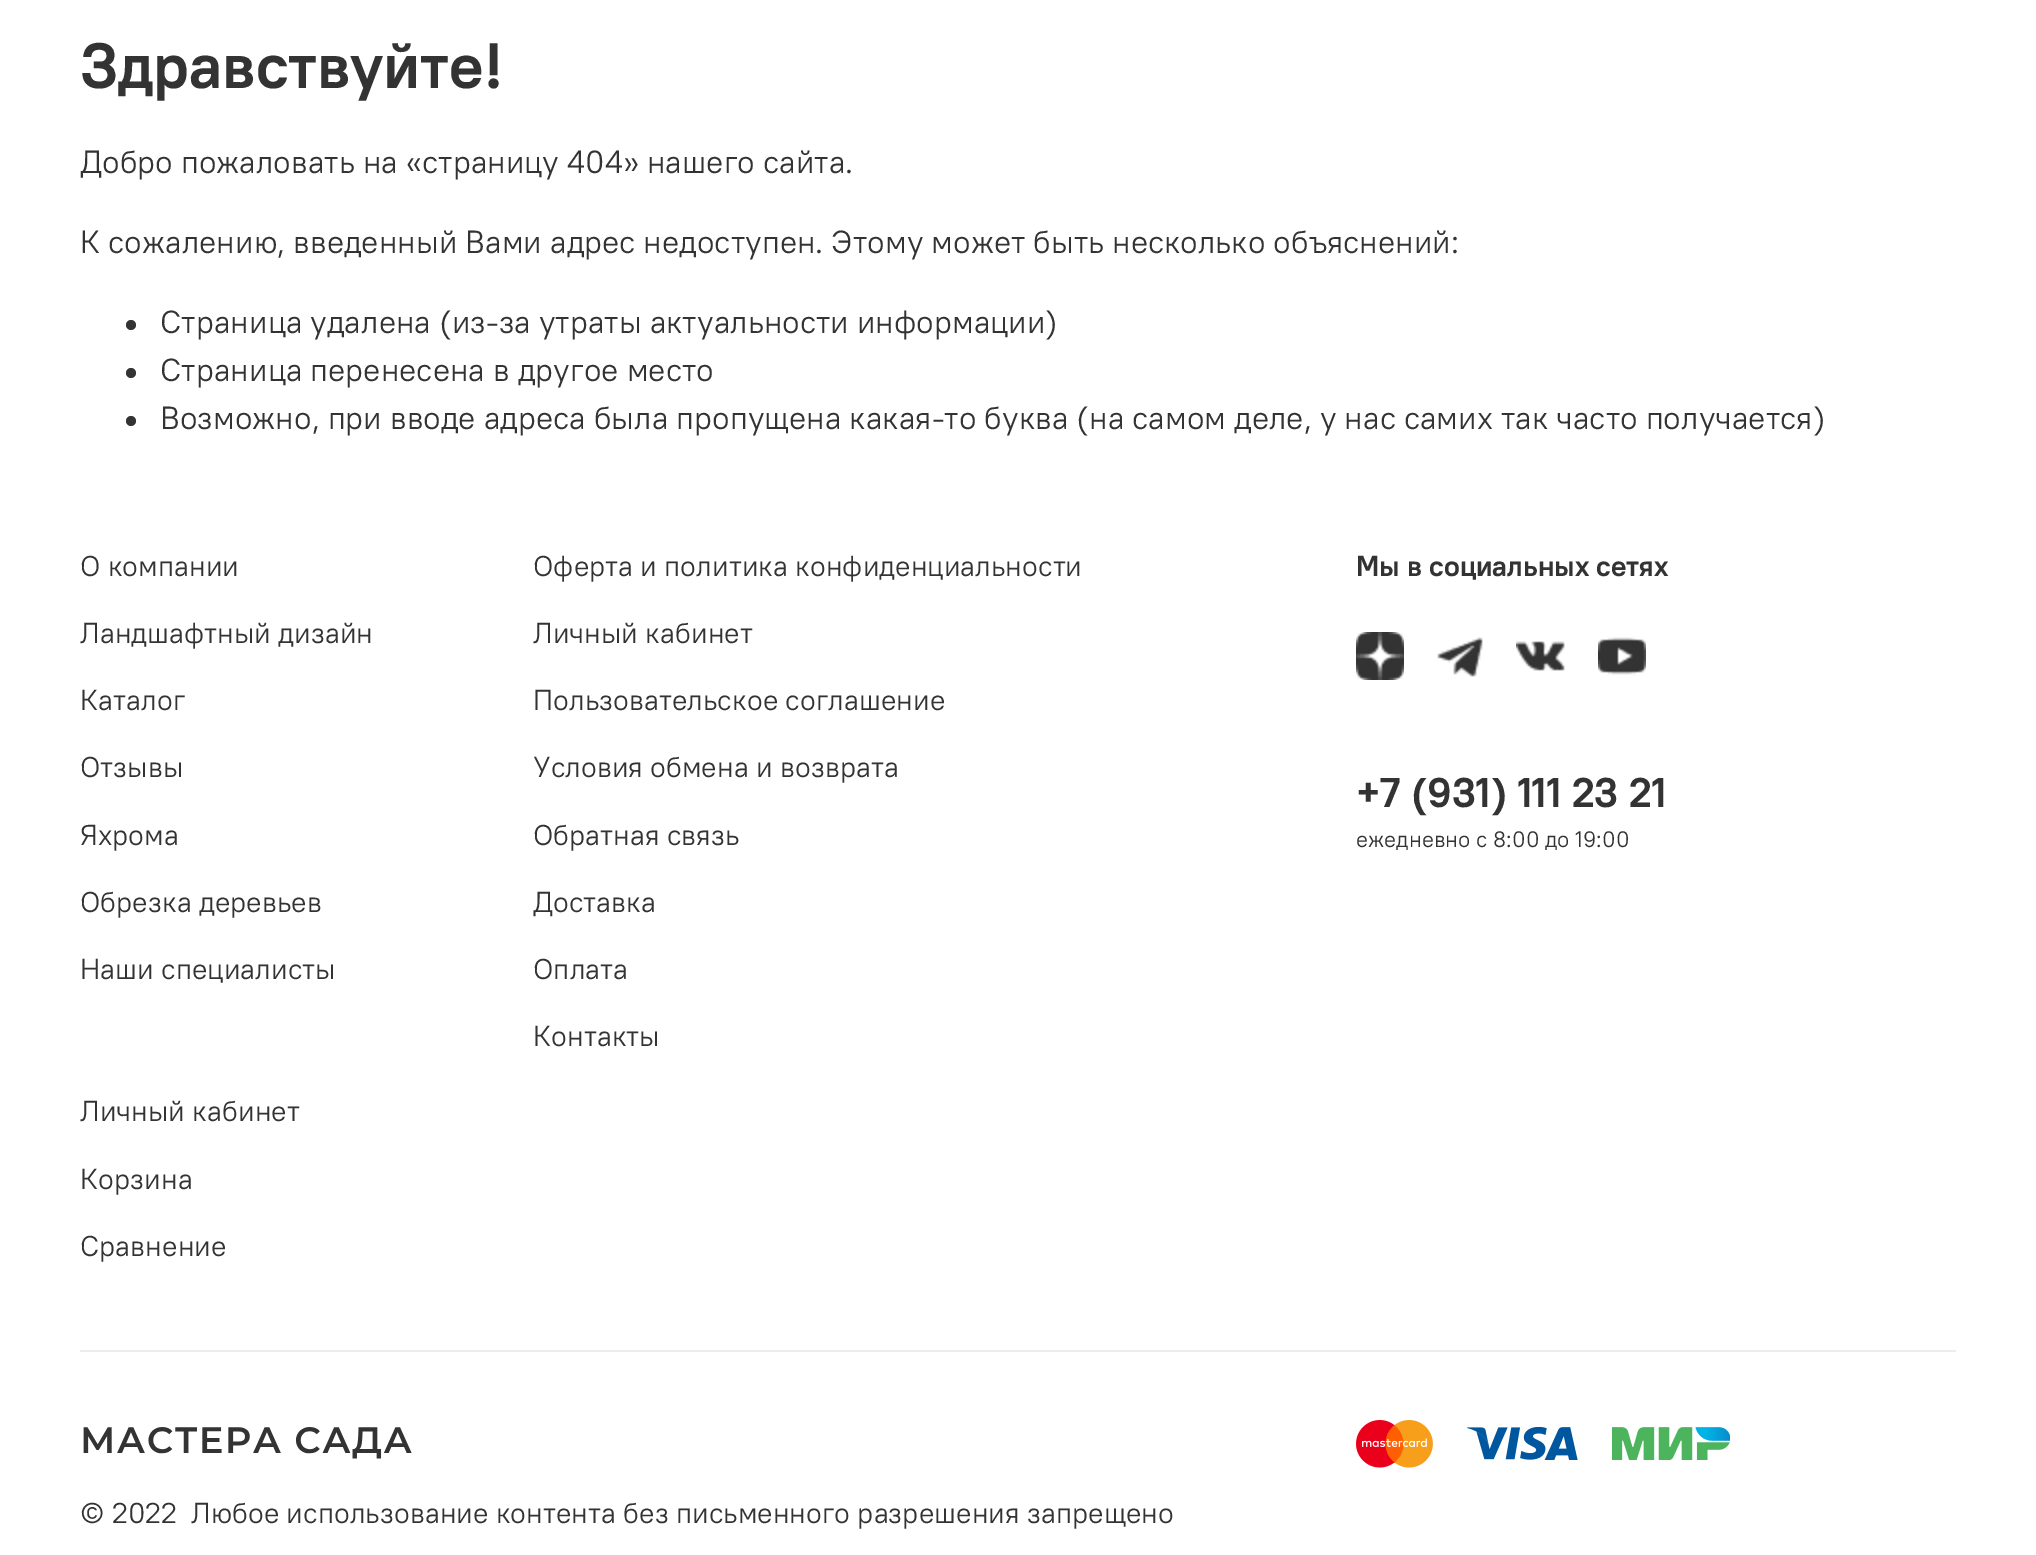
%!PS-Adobe-3.0
%%BoundingBox: 0 0 2036 1555
%%LanguageLevel: 3
%%Pages: 1
%%EndComments
%%BeginProlog
/f { fill } bind def
/fn { [ exch dup neg 0 0 3 -1 roll 0 0 ] selectfont } def
/tx { moveto show } def
/bx { rectfill } def
/ci { newpath 0 360 arc closepath } def
/im { 5 dict begin { /h /w /y /x /name } { exch def } forall
  gsave x y translate w h scale
  w h 8 [w 0 0 h 0 0] name (r) file false 3 colorimage grestore end } def
%%EndProlog
%%BeginSetup
<< /PageSize [2036 1555] >> setpagedevice
%%EndSetup
%%Page: 1 1
0 1555 translate 1 -1 scale
4 setmiterlimit
1 setgray
0 0 2036 1555 bx
/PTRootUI-Bold 64 fn
0.2 setgray
(Здравствуйте!) 80 88 tx
/PTRootUI-Regular 32 fn
(Добро пожаловать на «страницу 404» нашего сайта.) 80 173 tx
(К сожалению, введенный Вами адрес недоступен. Этому может быть несколько объяснений:) 80 253 tx
131 325 5 ci f
(Страница удалена \(из-за утраты актуальности информации\)) 160 333 tx
131 373 5 ci f
(Страница перенесена в другое место) 160 381 tx
131 421 5 ci f
(Возможно, при вводе адреса была пропущена какая-то буква \(на самом деле, у нас самих так часто получается\)) 160 429 tx
/PTRootUI-Regular 28.8 fn
(О компании) 80 576 tx
(Ландшафтный дизайн) 80 643 tx
(Каталог) 80 710 tx
(Отзывы) 80 777 tx
(Яхрома) 80 845 tx
(Обрезка деревьев) 80 912 tx
(Наши специалисты) 80 979 tx
(Оферта и политика конфиденциальности) 533 576 tx
(Личный кабинет) 533 643 tx
(Пользовательское соглашение) 533 710 tx
(Условия обмена и возврата) 533 777 tx
(Обратная связь) 533 845 tx
(Доставка) 533 912 tx
(Оплата) 533 979 tx
(Контакты) 533 1046 tx
(Личный кабинет) 80 1121 tx
(Корзина) 80 1189 tx
(Сравнение) 80 1256 tx
/PTRootUI-Bold 28.8 fn
(Мы в социальных сетях) 1356 576 tx
(image0.raw) 1356 632 48 48 im
(image1.raw) 1437 637 46 40 im
(image2.raw) 1516 641 49 30 im
(image3.raw) 1598 637 48 38 im
/PTRootUI-Bold 41.5 fn
(+7 \(931\) 111 23 21) 1356 807 tx
/PTRootUI-Regular 22.4 fn
(ежедневно с 8:00 до 19:00) 1356 847 tx
0.929 setgray
80 1350 1876 2 bx
(image4.raw) 83 1427 329 32 im
(image5.raw) 1356 1420 77 48 im
(image6.raw) 1467 1427 111 33 im
(image7.raw) 1612 1427 118 33 im
/PTRootUI-Regular 28.8 fn
0.2 setgray
(© 2022  Любое использование контента без письменного разрешения запрещено) 80 1523 tx
showpage
%%EOF
